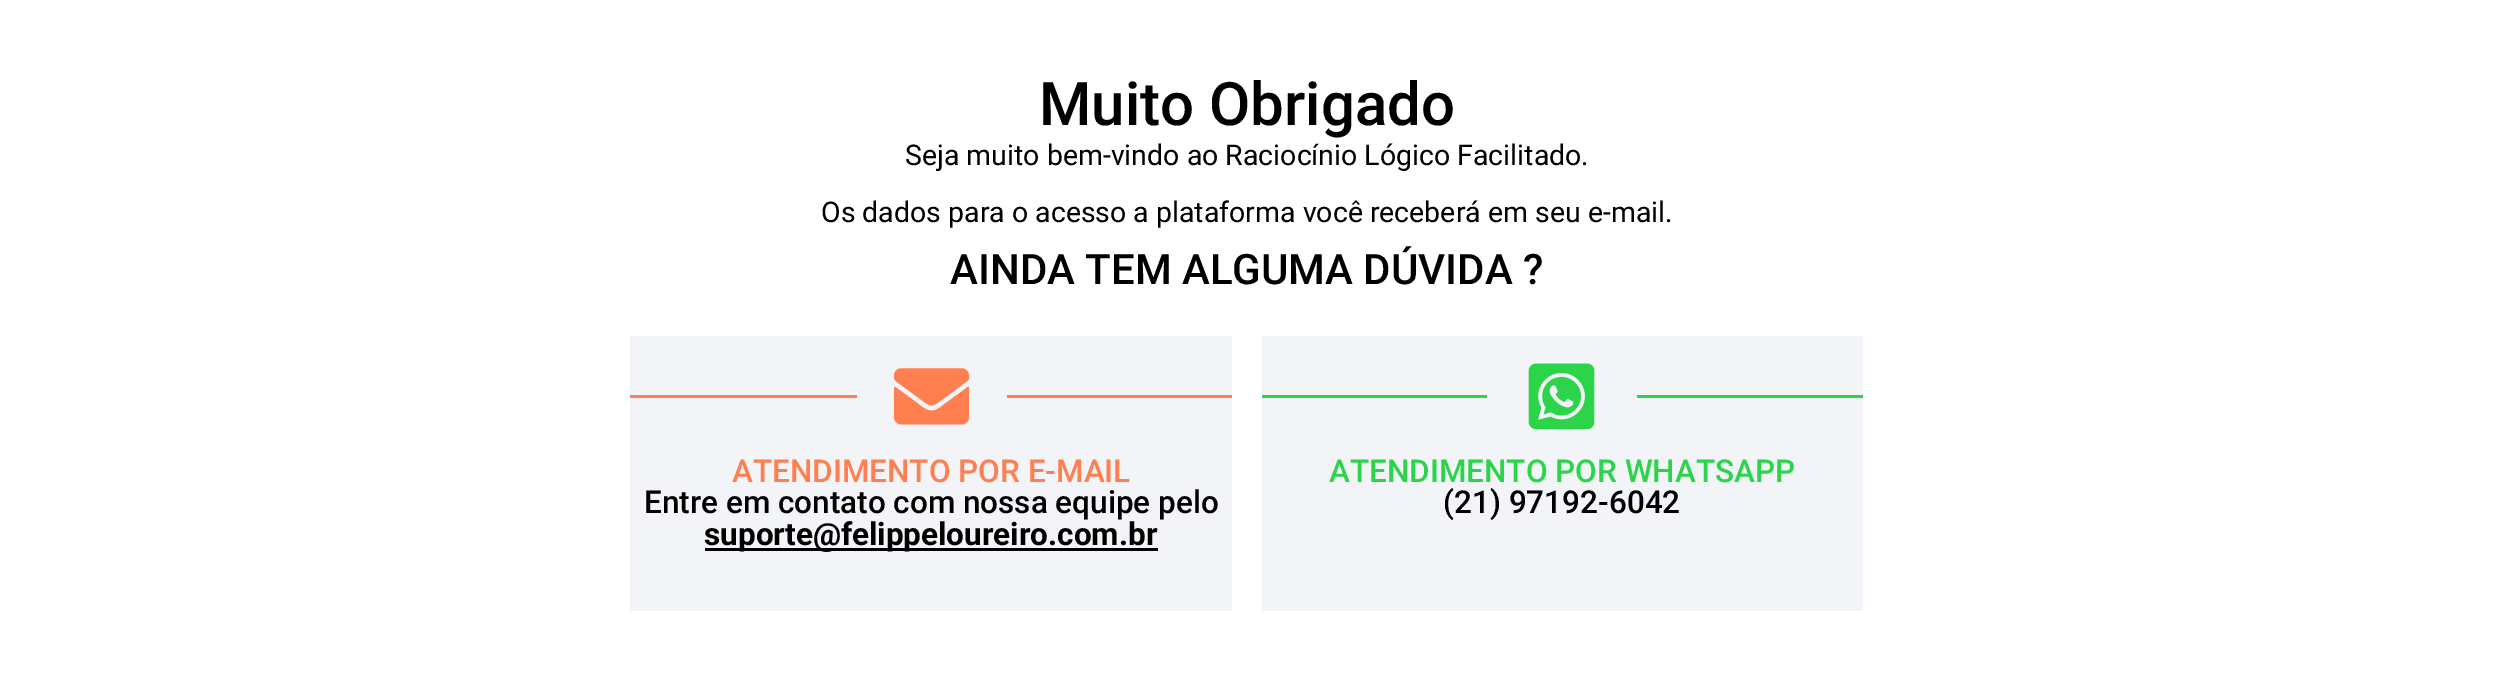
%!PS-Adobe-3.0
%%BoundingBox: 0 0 2493 673
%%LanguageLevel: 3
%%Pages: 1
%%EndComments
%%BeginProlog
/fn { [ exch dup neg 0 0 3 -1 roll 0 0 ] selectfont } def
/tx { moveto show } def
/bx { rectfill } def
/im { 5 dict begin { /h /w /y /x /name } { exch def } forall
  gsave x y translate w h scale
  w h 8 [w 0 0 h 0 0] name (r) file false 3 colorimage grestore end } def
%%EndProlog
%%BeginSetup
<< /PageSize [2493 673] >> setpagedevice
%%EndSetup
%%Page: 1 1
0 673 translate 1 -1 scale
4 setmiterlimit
1 setgray
0 0 2493 673 bx
/Roboto-Medium 60 fn
0 setgray
(Muito Obrigado) 1039 125 tx
/Roboto-Regular 28.5 fn
(Seja muito bem-vindo ao Raciocínio Lógico Facilitado.) 905 165 tx
(Os dados para o acesso a plataforma você receberá em seu e-mail.) 821 222 tx
/Roboto-Medium 42 fn
(AINDA TEM ALGUMA DÚVIDA ?) 950 284 tx
0.953 0.957 0.973 setrgbcolor
630 336 602 275 bx
1 0.498 0.314 setrgbcolor
630 395 227 3 bx
(image0.raw) 894 368 75 57 im
1007 395 225 3 bx
/Roboto-Medium 31.5 fn
(ATENDIMENTO POR E-MAIL) 732 482 tx
0 setgray
(Entre em contato com nossa equipe pelo) 644 513 tx
705 548 453 3 bx
/Roboto-Bold 31.5 fn
(suporte@felippeloureiro.com.br) 704 545 tx
0.953 0.957 0.973 setrgbcolor
1262 336 601 275 bx
0.169 0.831 0.286 setrgbcolor
1262 395 225 3 bx
(image1.raw) 1528 363 67 67 im
1637 395 226 3 bx
/Roboto-Medium 31.5 fn
(ATENDIMENTO POR WHATSAPP) 1329 482 tx
0 setgray
(\(21\) 97192-6042) 1443 513 tx
showpage
%%EOF
